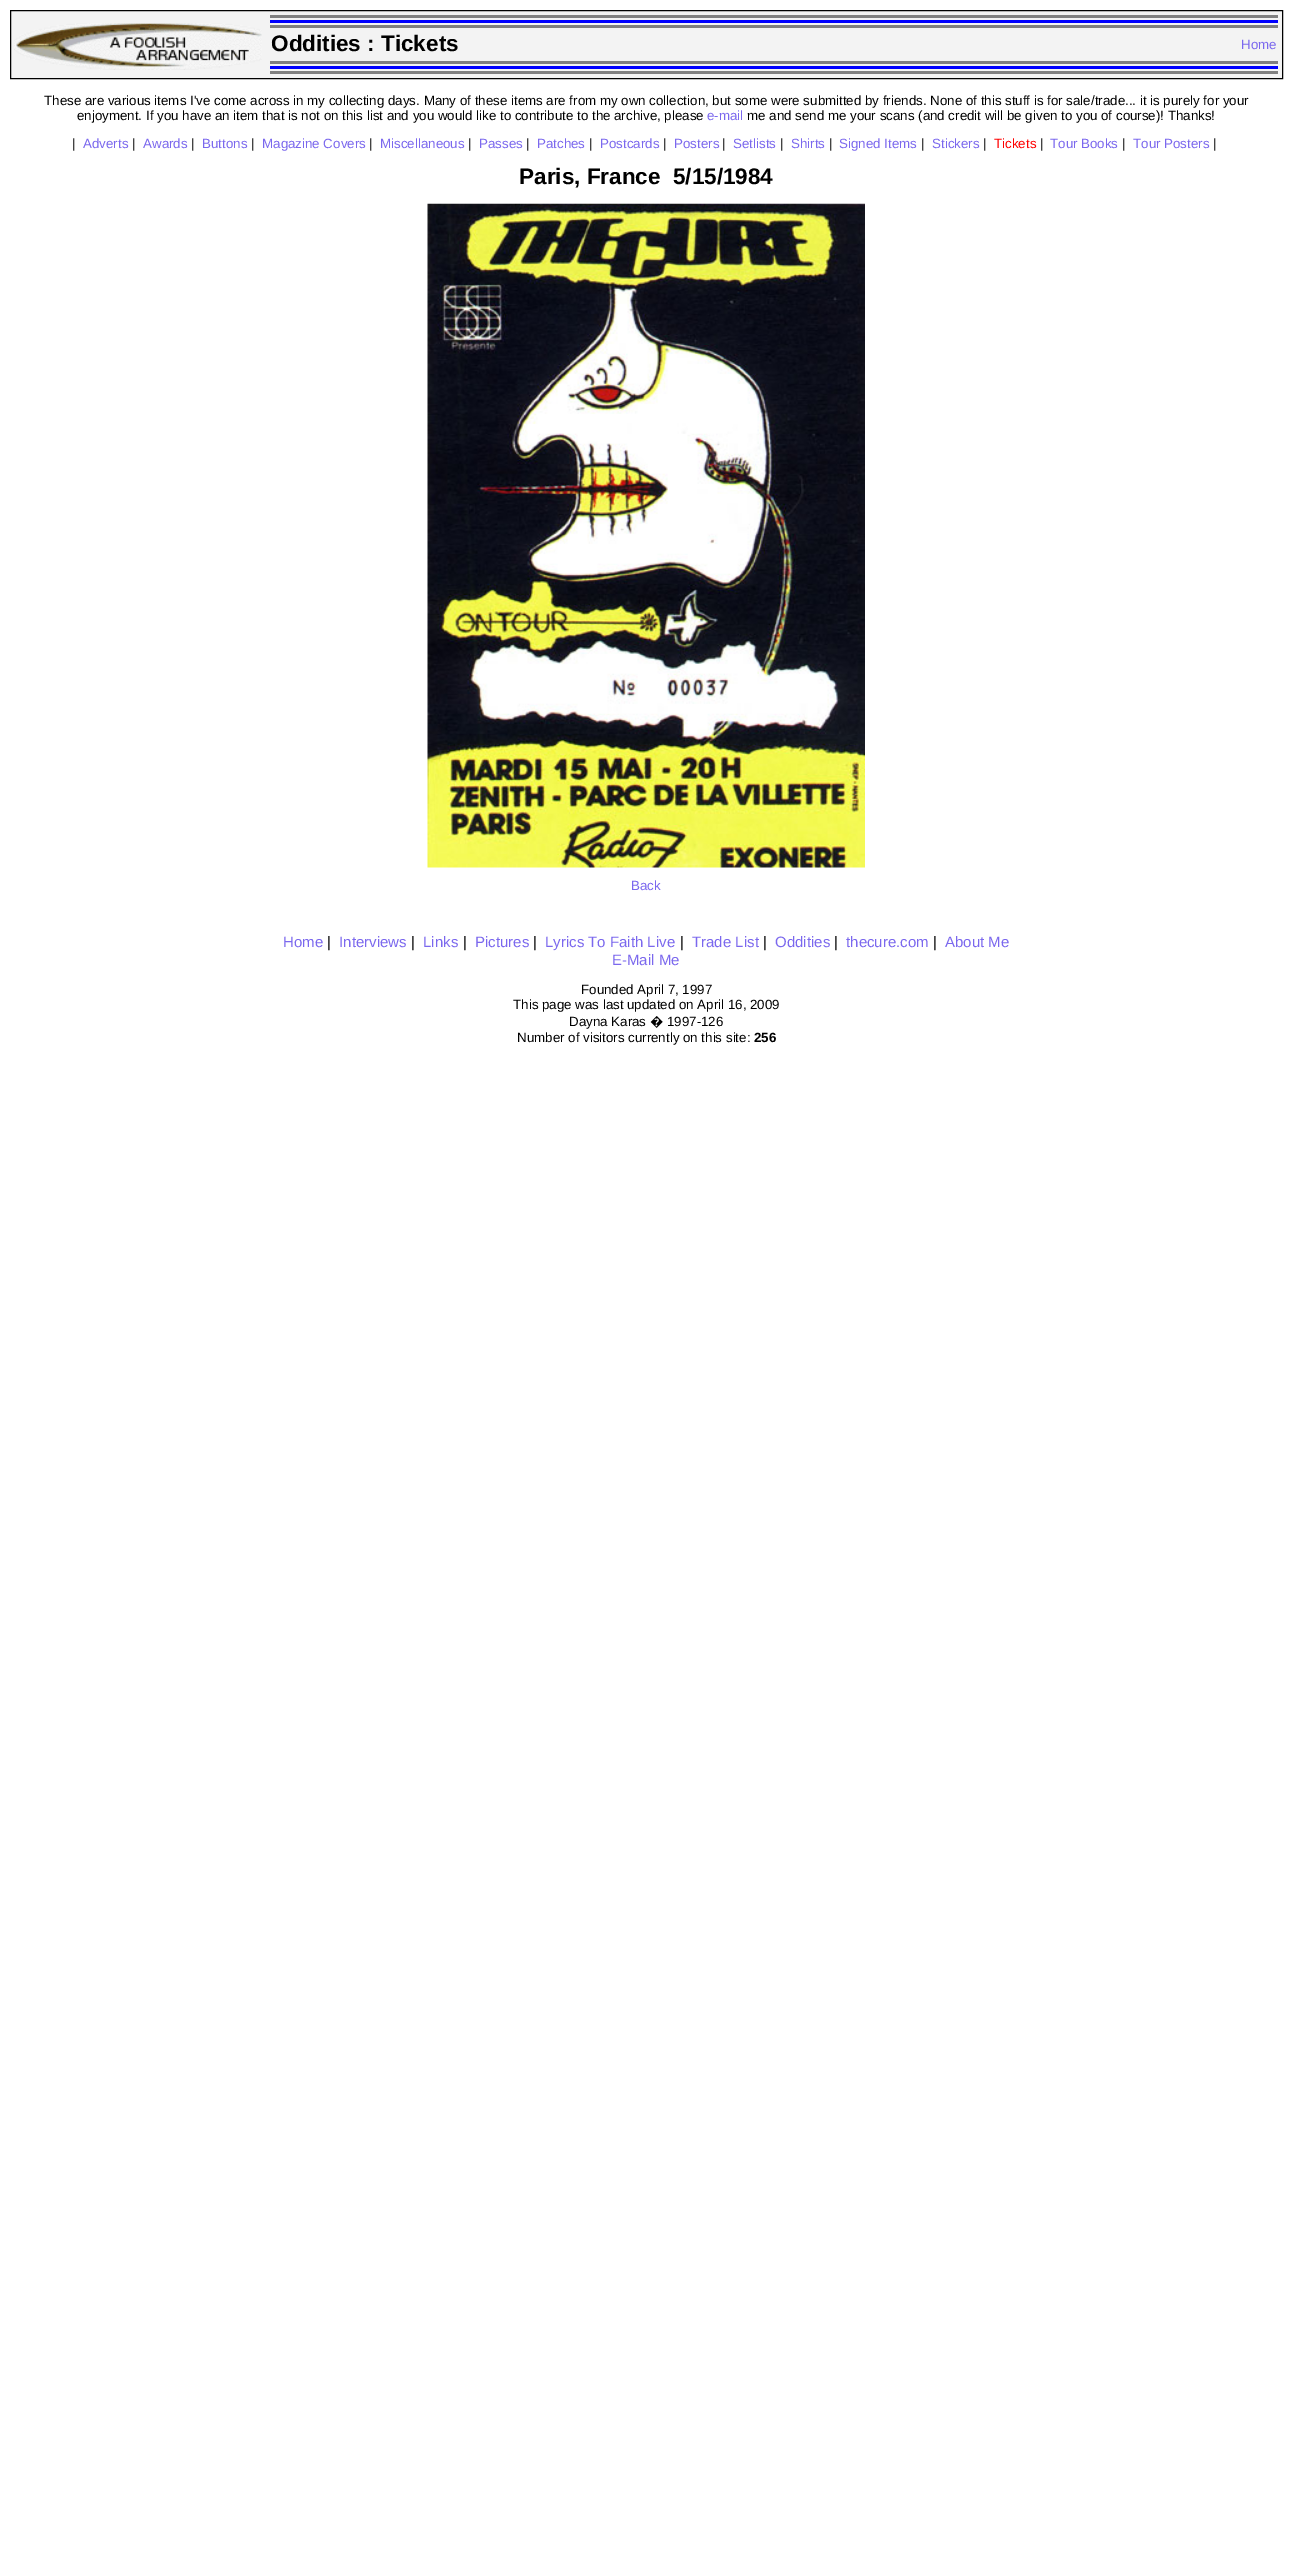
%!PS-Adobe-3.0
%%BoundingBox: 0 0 1292 2574
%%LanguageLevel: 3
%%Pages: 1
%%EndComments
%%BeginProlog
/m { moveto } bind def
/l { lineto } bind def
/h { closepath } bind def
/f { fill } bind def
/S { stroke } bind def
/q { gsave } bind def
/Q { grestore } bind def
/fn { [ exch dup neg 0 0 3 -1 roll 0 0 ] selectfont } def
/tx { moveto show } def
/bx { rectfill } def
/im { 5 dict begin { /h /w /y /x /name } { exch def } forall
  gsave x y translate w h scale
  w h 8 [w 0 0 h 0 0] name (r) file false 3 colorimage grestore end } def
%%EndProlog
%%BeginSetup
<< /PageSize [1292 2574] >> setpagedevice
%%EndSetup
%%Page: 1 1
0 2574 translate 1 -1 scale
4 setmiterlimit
1 setgray
0 0 1292 2574 bx
0.953 setgray
10.5 10.5 m 1282.5 10.5 l 1282.5 78.5 l 10.5 78.5 l h q f Q
0 setgray
S
(image0.raw) 14 23 248 47 im
0.502 setgray
270 15 1008 3 bx
0 0 1 setrgbcolor
270 20 1008 3 bx
0.502 setgray
270 25 1008 3 bx
/LiberationSans-Bold 22.5 fn
0 setgray
(Oddities : Tickets) 271 51 tx
/LiberationSans-Regular 13.33 fn
0.482 0.408 0.933 setrgbcolor
(Home) 1241 49 tx
0.502 setgray
270 61 1008 3 bx
0 0 1 setrgbcolor
270 66 1008 3 bx
0.502 setgray
270 71 1008 3 bx
0 setgray
(These are various items I've come across in my collecting days. Many of these items are from my own collection, but some were submitted by friends. None of this stuff is for sale/trade... it is purely for your) 44 105 tx
(enjoyment. If you have an item that is not on this list and you would like to contribute to the archive, please) 77 120 tx
0.482 0.408 0.933 setrgbcolor
(e-mail) 707 120 tx
0 setgray
(me and send me your scans \(and credit will be given to you of course\)! Thanks!) 747 120 tx
(|) 72 148 tx
0.482 0.408 0.933 setrgbcolor
(Adverts) 83 148 tx
0 setgray
(|) 132 148 tx
0.482 0.408 0.933 setrgbcolor
(Awards) 143 148 tx
0 setgray
(|) 191 148 tx
0.482 0.408 0.933 setrgbcolor
(Buttons) 202 148 tx
0 setgray
(|) 251 148 tx
0.482 0.408 0.933 setrgbcolor
(Magazine Covers) 262 148 tx
0 setgray
(|) 369 148 tx
0.482 0.408 0.933 setrgbcolor
(Miscellaneous) 380 148 tx
0 setgray
(|) 468 148 tx
0.482 0.408 0.933 setrgbcolor
(Passes) 479 148 tx
0 setgray
(|) 526 148 tx
0.482 0.408 0.933 setrgbcolor
(Patches) 537 148 tx
0 setgray
(|) 589 148 tx
0.482 0.408 0.933 setrgbcolor
(Postcards) 600 148 tx
0 setgray
(|) 663 148 tx
0.482 0.408 0.933 setrgbcolor
(Posters) 674 148 tx
0 setgray
(|) 722 148 tx
0.482 0.408 0.933 setrgbcolor
(Setlists) 733 148 tx
0 setgray
(|) 780 148 tx
0.482 0.408 0.933 setrgbcolor
(Shirts) 791 148 tx
0 setgray
(|) 829 148 tx
0.482 0.408 0.933 setrgbcolor
(Signed Items) 839 148 tx
0 setgray
(|) 921 148 tx
0.482 0.408 0.933 setrgbcolor
(Stickers) 932 148 tx
0 setgray
(|) 983 148 tx
1 0 0 setrgbcolor
(Tickets) 994 148 tx
0 setgray
(|) 1040 148 tx
0.482 0.408 0.933 setrgbcolor
(Tour Books) 1050 148 tx
0 setgray
(|) 1122 148 tx
0.482 0.408 0.933 setrgbcolor
(Tour Posters) 1133 148 tx
0 setgray
(|) 1213 148 tx
/LiberationSans-Bold 22.5 fn
(Paris, France  5/15/1984) 519 184 tx
(image1.raw) 427 203 438 665 im
/LiberationSans-Regular 13.33 fn
0.482 0.408 0.933 setrgbcolor
(Back) 631 890 tx
/LiberationSans-Regular 15 fn
(Home) 283 947 tx
0 setgray
(|) 327 947 tx
0.482 0.408 0.933 setrgbcolor
(Interviews) 339 947 tx
0 setgray
(|) 411 947 tx
0.482 0.408 0.933 setrgbcolor
(Links) 423 947 tx
0 setgray
(|) 463 947 tx
0.482 0.408 0.933 setrgbcolor
(Pictures) 475 947 tx
0 setgray
(|) 533 947 tx
0.482 0.408 0.933 setrgbcolor
(Lyrics To Faith Live) 545 947 tx
0 setgray
(|) 680 947 tx
0.482 0.408 0.933 setrgbcolor
(Trade List) 692 947 tx
0 setgray
(|) 763 947 tx
0.482 0.408 0.933 setrgbcolor
(Oddities) 775 947 tx
0 setgray
(|) 834 947 tx
0.482 0.408 0.933 setrgbcolor
(thecure.com) 846 947 tx
0 setgray
(|) 933 947 tx
0.482 0.408 0.933 setrgbcolor
(About Me) 945 947 tx
(E-Mail Me) 612 965 tx
/LiberationSans-Regular 13.33 fn
0 setgray
(Founded April 7, 1997) 581 994 tx
(This page was last updated on April 16, 2009) 513 1009 tx
(Dayna Karas) 569 1026 tx
/NotoSans-Regular 13.33 fn
(�) 650 1026 tx
/LiberationSans-Regular 13.33 fn
(1997-126) 667 1026 tx
(Number of visitors currently on this site:) 517 1042 tx
/LiberationSans-Bold 13.33 fn
(256) 754 1042 tx
showpage
%%EOF
